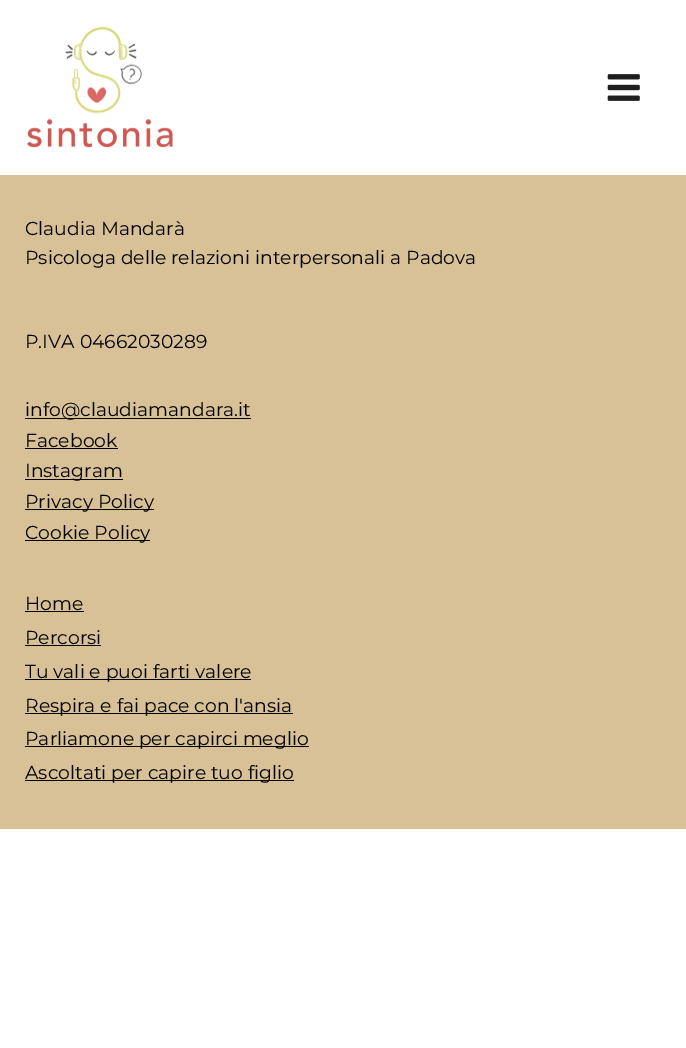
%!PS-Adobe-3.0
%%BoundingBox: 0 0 686 1048
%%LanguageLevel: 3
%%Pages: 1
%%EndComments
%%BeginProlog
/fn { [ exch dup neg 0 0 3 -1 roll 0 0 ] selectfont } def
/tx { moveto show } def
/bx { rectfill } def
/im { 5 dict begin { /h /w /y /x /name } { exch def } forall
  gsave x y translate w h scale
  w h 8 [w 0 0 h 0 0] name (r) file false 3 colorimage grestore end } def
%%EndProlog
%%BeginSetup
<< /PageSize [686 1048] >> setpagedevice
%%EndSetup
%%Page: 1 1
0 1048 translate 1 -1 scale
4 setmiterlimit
1 setgray
0 0 686 1048 bx
(image0.raw) 26 26 147 124 im
(image1.raw) 607 74 33 27 im
0.847 0.757 0.592 setrgbcolor
0 175 686 654 bx
/Montserrat-Regular 18.75 fn
0 setgray
(Claudia Mandarà) 25 235 tx
(Psicologa delle relazioni interpersonali a Padova) 25 264 tx
(P.IVA 04662030289) 25 348 tx
25 418 226 1 bx
(info@claudiamandara.it) 25 416 tx
(Facebook) 25 447 tx
25 448 93 1 bx
25 479 98 1 bx
(Instagram) 25 477 tx
25 509 129 1 bx
(Privacy Policy) 25 508 tx
25 540 125 1 bx
(Cookie Policy) 25 539 tx
(Home) 25 610 tx
25 611 59 1 bx
(Percorsi) 25 644 tx
25 645 76 1 bx
25 679 226 1 bx
(Tu vali e puoi farti valere) 25 678 tx
25 713 268 1 bx
(Respira e fai pace con l'ansia) 25 712 tx
25 746 284 1 bx
(Parliamone per capirci meglio) 25 745 tx
25 780 269 1 bx
(Ascoltati per capire tuo figlio) 25 779 tx
showpage
%%EOF
